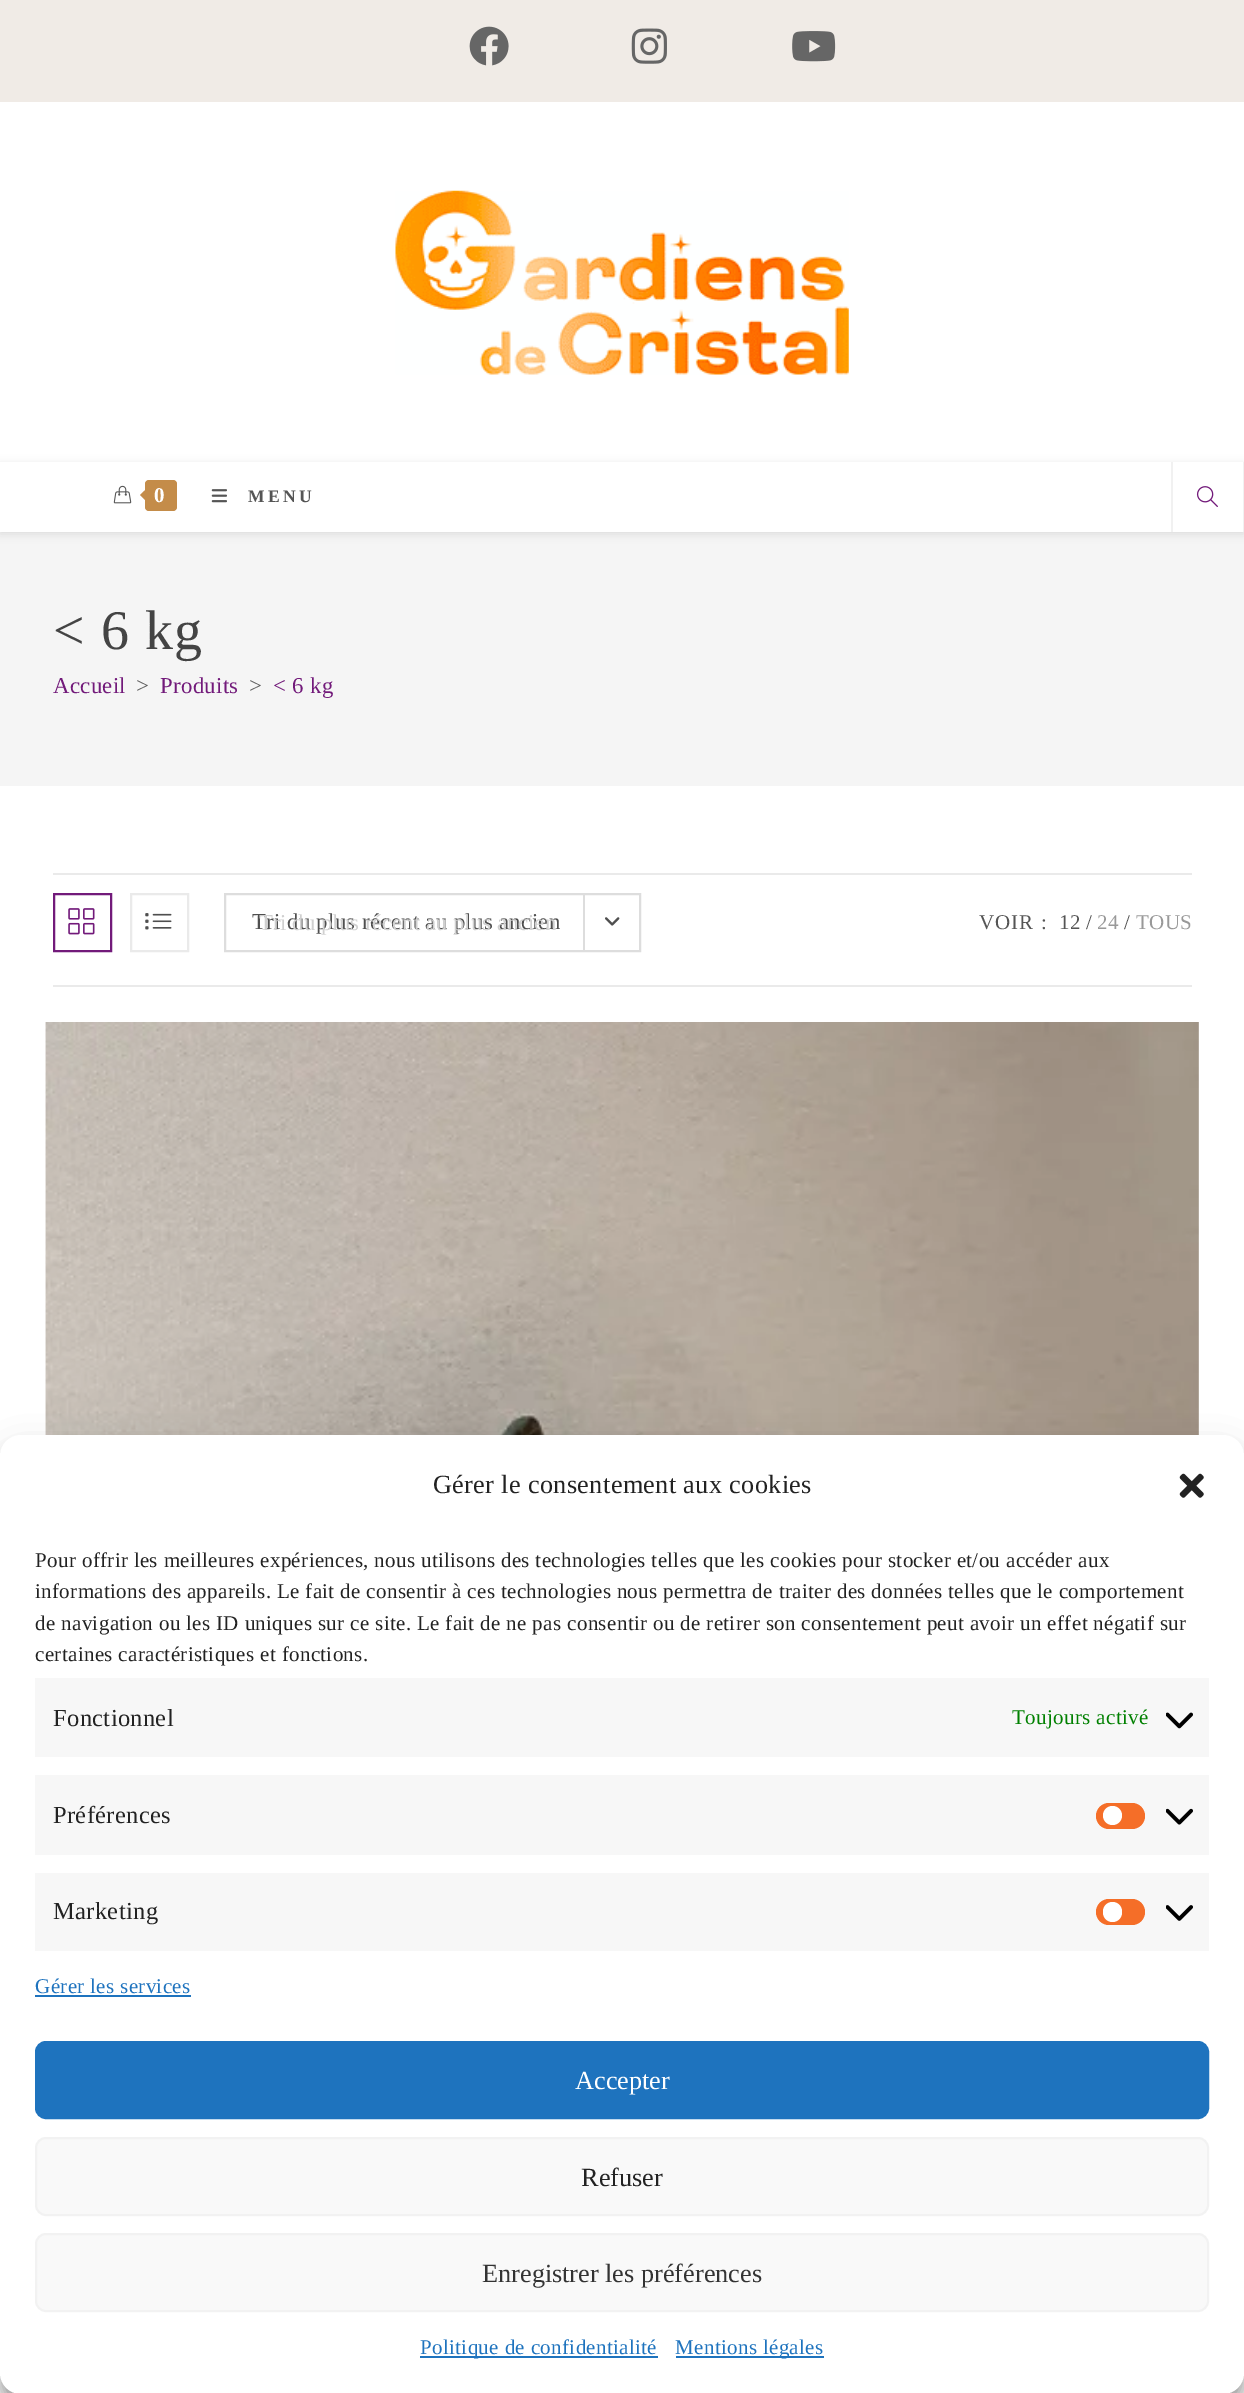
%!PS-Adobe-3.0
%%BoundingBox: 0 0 1244 2393
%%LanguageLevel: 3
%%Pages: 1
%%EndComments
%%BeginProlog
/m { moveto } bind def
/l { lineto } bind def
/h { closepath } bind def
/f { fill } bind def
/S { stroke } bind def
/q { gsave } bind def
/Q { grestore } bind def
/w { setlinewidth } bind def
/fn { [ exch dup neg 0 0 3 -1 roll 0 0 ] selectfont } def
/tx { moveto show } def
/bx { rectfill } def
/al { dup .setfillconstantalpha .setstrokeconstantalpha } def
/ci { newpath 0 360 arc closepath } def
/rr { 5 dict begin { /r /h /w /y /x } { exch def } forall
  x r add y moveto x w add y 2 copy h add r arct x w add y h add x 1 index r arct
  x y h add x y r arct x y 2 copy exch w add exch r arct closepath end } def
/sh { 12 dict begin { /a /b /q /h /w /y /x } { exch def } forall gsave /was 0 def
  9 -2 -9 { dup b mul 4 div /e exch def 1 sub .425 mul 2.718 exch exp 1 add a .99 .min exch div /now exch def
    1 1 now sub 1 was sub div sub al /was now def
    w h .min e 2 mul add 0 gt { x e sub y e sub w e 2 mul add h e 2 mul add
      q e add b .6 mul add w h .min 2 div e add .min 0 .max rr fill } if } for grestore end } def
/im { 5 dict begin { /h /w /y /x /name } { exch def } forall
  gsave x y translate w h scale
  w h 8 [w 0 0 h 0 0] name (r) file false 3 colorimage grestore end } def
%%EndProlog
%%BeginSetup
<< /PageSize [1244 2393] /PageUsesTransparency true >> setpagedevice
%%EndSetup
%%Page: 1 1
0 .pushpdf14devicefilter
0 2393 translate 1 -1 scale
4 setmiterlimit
1 setgray
0 0 1244 2393 bx
0.941 0.922 0.902 setrgbcolor
0 0 1244 102 bx
(image0.raw) 469 26 40 40 im
(image1.raw) 631 28 36 36 im
(image2.raw) 792 31 44 31 im
(image3.raw) 395 190 454 185 im
0.961 setgray
0 532 1244 254 bx
q
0 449 m 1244 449 l 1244 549 l 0 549 l h 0 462 m 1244 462 l 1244 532 l 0 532 l h eoclip newpath
0 setgray
0 464 1244 70 0 4.5 0.1 sh
Q
(image4.raw) 113 485 19 19 im
0.769 0.549 0.286 setrgbcolor
145 480 32 31 4 rr f
149 486.5 m 149 504 l 140 495 l h f
/LiberationSerif-Bold 21 fn
1 setgray
154 502 m 3.5 0 (0) ashow
(image5.raw) 211 489 16 14 im
/LiberationSerif-Bold 17.5 fn
0.333 setgray
248 502 m 3.5 0 (MENU) ashow
0.945 setgray
1243 462 1 70 bx
1171 462 2 70 bx
(image6.raw) 1196 486 22 21 im
/LiberationSerif-Regular 56 fn
0.267 setgray
53 649 m 1 0 (< 6 kg) ashow
/LiberationSerif-Regular 22.75 fn
0.447 0.102 0.478 setrgbcolor
53 693 m 0.35 0 (Accueil) ashow
0.369 setgray
136 693 m 0.35 0 (>) ashow
0.447 0.102 0.478 setrgbcolor
160 693 m 0.35 0 (Produits) ashow
0.369 setgray
249 693 m 0.35 0 (>) ashow
0.447 0.102 0.478 setrgbcolor
273 693 m 0.35 0 (< 6 kg) ashow
0.918 setgray
53 873 1139 2 bx
53 985 1139 2 bx
0.447 0.102 0.478 setrgbcolor
2 w
54 894 57 57 rectstroke
(image7.raw) 68 908 27 27 im
0.918 setgray
131 894 57 57 rectstroke
(image8.raw) 145 913 27 17 im
0.867 setgray
225 894 415 57 rectstroke
0.31 setgray
252 929 m 0.35 0 (Tri du plus récent au plus ancien) ashow
0.867 setgray
583 894 2 56 bx
(image9.raw) 605 917 15 9 im
0.816 setgray
(Tri du plus récent au plus ancien) 259 930 tx
/LiberationSerif-Regular 21 fn
0.333 setgray
979 929 m 1 0 (VOIR :) ashow
1059 929 m 0.35 0 (12) ashow
0.31 setgray
1086 929 m 0.35 0 (/) ashow
0.6 setgray
1097 929 m 0.35 0 (24) ashow
0.31 setgray
1124 929 m 0.35 0 (/) ashow
0.6 setgray
1136 929 m 0.35 0 (TOUS) ashow
(image10.raw) 45 1022 1154 413 im
(image11.raw) 45 1022 1154 413 im
0 setgray
0 1446 1244 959 21 5 0.23 sh
0 1453 1244 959 21 17.5 0.19 sh
1 setgray
0 1435 1244 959 21 rr f
/LiberationSerif-Regular 26.25 fn
0.133 setgray
433 1493 m 0.35 0 (Gérer le consentement aux cookies) ashow
(image12.raw) 1179 1473 25 25 im
/LiberationSerif-Regular 21 fn
35 1567 m 0.35 0 (Pour offrir les meilleures expériences, nous utilisons des technologies telles que les cookies pour stocker et/ou accéder aux) ashow
35 1598 m 0.35 0 (informations des appareils. Le fait de consentir à ces technologies nous permettra de traiter des données telles que le comportement) ashow
35 1630 m 0.35 0 (de navigation ou les ID uniques sur ce site. Le fait de ne pas consentir ou de retirer son consentement peut avoir un effet négatif sur) ashow
35 1661 m 0.35 0 (certaines caractéristiques et fonctions.) ashow
0.969 setgray
35 1678 1174 79 bx
/LiberationSerif-Regular 24.5 fn
0.133 setgray
53 1726 m 0.35 0 (Fonctionnel) ashow
/LiberationSerif-Regular 21 fn
0 0.502 0 setrgbcolor
1012 1724 m 0.35 0 (Toujours activé) ashow
(image13.raw) 1166 1712 27 17 im
0.969 setgray
35 1775 1174 80 bx
/LiberationSerif-Regular 24.5 fn
0.133 setgray
53 1823 m 0.35 0 (Préférences) ashow
0.961 0.431 0.157 setrgbcolor
1096 1803 49 26 13 rr f
1 setgray
1112.5 1815.5 9.5 ci f
(image14.raw) 1166 1808 27 17 im
0.969 setgray
35 1873 1174 78 bx
0.133 setgray
53 1919 m 0.35 0 (Marketing) ashow
0.961 0.431 0.157 setrgbcolor
1096 1899 49 26 13 rr f
1 setgray
1103 1902 19 20 9.5 rr f
(image15.raw) 1166 1905 27 16 im
/LiberationSerif-Regular 21 fn
0.118 0.451 0.745 setrgbcolor
35 1993 m 0.35 0 (Gérer les services) ashow
35 1995 156 2 bx
36 2042 1172 76 10 rr q f Q
S
/LiberationSerif-Regular 26.25 fn
1 setgray
(Accepter) 575 2089 tx
0.976 setgray
36 2138 1172 77 10 rr q f Q
0.949 setgray
S
0.133 setgray
(Refuser) 581 2186 tx
0.976 setgray
36 2234 1172 77 10 rr q f Q
0.949 setgray
S
0.2 setgray
(Enregistrer les préférences) 482 2282 tx
0.118 0.451 0.745 setrgbcolor
420 2356 238 2 bx
/LiberationSerif-Regular 21 fn
420 2354 m 0.35 0 (Politique de confidentialité) ashow
676 2356 148 2 bx
675 2354 m 0.35 0 (Mentions légales) ashow
.poppdf14devicefilter showpage
%%EOF
